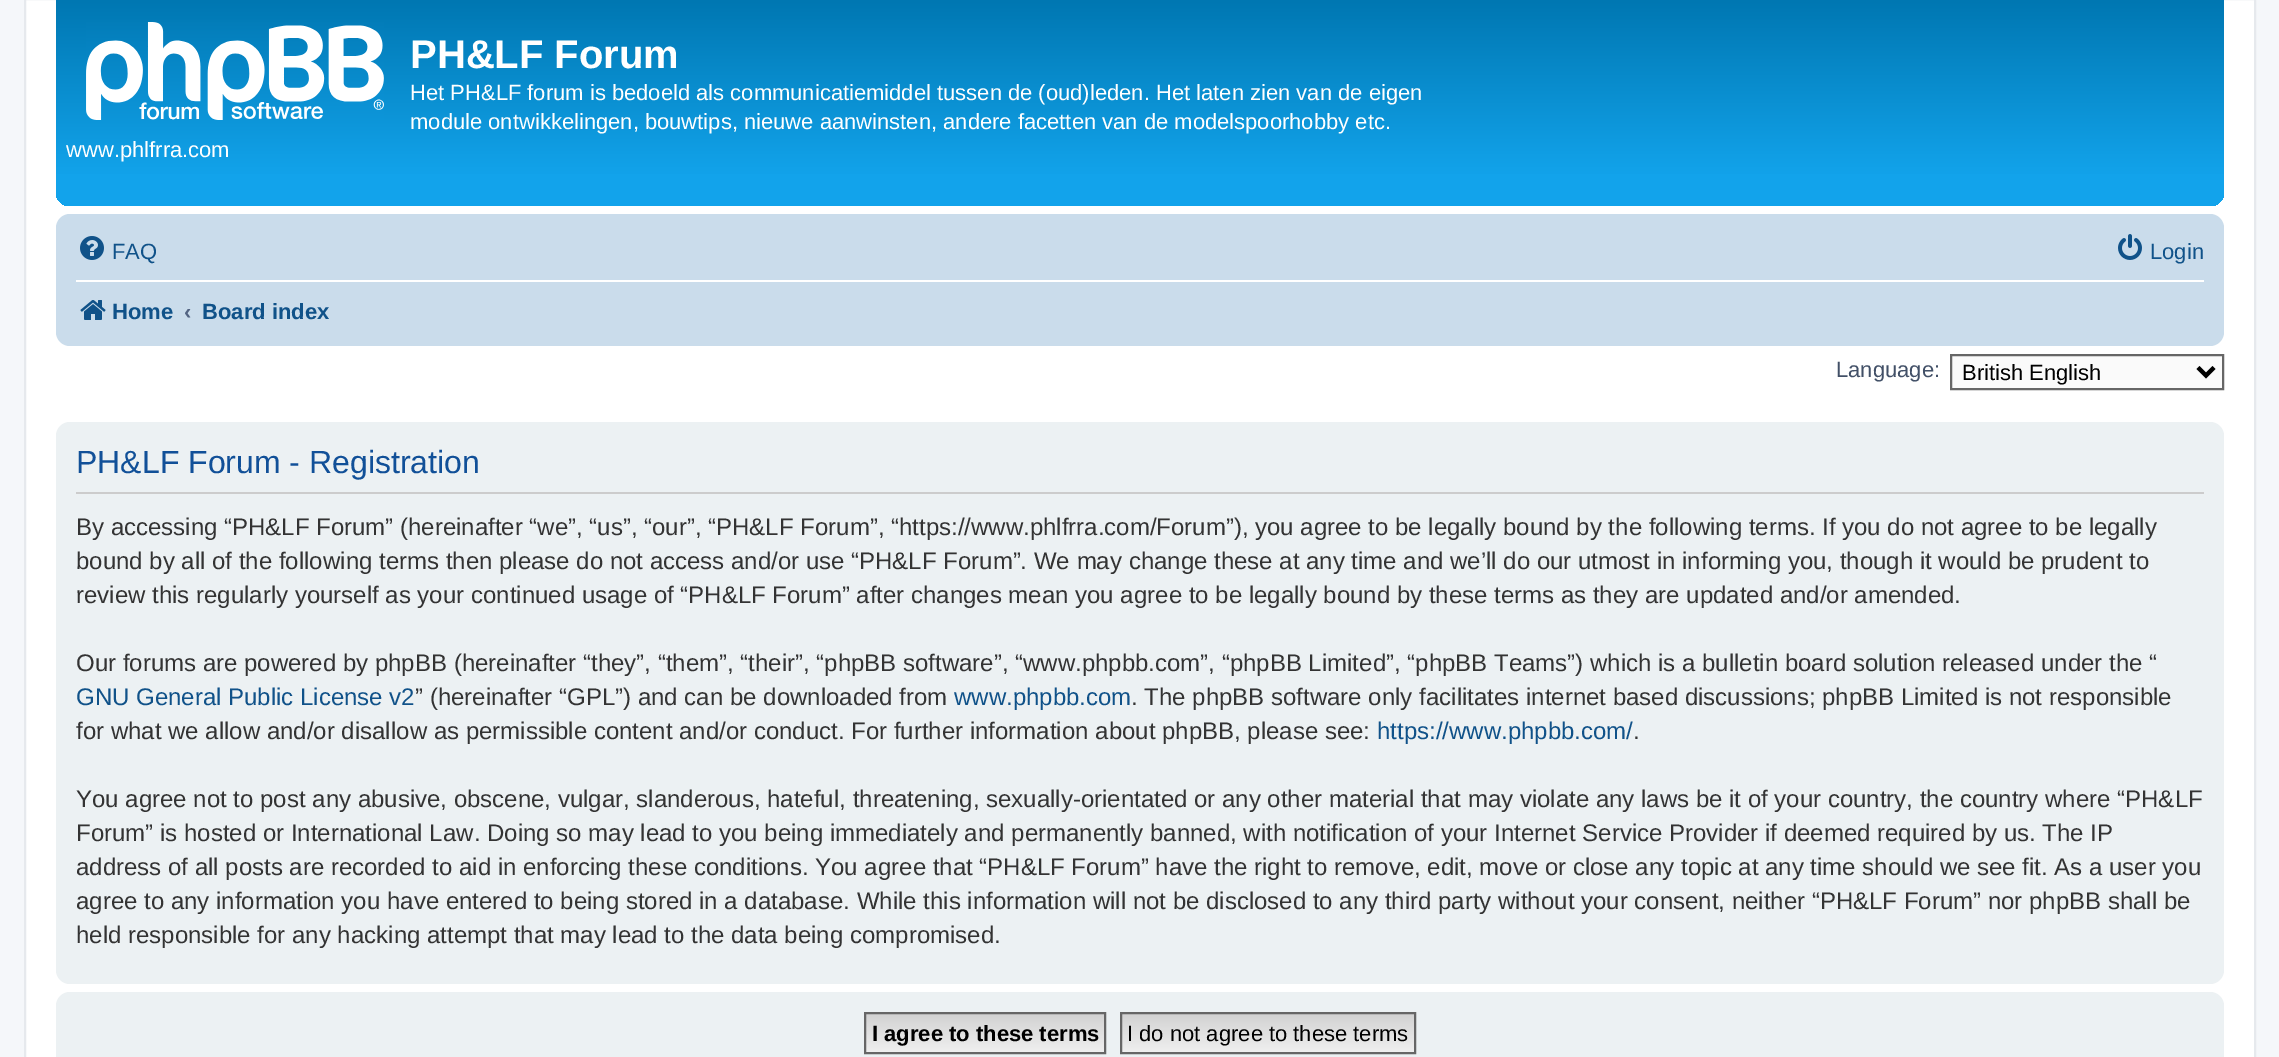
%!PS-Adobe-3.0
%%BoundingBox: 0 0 2279 1057
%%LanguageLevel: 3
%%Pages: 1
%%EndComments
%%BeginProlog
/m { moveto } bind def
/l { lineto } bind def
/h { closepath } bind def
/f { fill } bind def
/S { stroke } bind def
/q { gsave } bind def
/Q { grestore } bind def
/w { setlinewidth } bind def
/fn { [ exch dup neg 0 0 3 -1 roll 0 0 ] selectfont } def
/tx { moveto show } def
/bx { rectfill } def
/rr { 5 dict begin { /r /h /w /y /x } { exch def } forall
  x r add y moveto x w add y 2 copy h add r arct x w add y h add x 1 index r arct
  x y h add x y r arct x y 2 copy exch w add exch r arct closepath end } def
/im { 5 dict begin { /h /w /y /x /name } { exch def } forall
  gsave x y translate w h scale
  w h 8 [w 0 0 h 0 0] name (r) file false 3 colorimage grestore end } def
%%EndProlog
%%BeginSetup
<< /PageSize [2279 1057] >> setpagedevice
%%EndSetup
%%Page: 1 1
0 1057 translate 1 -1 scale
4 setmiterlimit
0.961 0.969 0.98 setrgbcolor
0 0 2279 1057 bx
1 setgray
25 -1 m 2255 -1 l 2255 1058 l 25 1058 l h q f Q
0.902 0.914 0.929 setrgbcolor
2 w
S
q 56 -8 2168 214 14 rr clip newpath
<< /ShadingType 2 /ColorSpace /DeviceRGB /Coords [1140 -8 1140 206] /Extend [true true] /Function << /FunctionType 3 /Domain [0 1] /Functions [<< /FunctionType 2 /Domain [0 1] /C0 [0.416 0.808 1] /C1 [0 0.463 0.694] /N 1 >> << /FunctionType 2 /Domain [0 1] /C0 [0 0.463 0.694] /C1 [0.071 0.639 0.922] /N 1 >> << /FunctionType 2 /Domain [0 1] /C0 [0.071 0.639 0.922] /C1 [0.071 0.639 0.922] /N 1 >>] /Bounds [0.02 0.86] /Encode [0 1 0 1 0 1] >> >> shfill Q
(image0.raw) 86 22 298 98 im
/LiberationSans-Bold 40 fn
1 setgray
(PH&LF Forum) 410 68 tx
/LiberationSans-Regular 22 fn
(Het PH&LF forum is bedoeld als communicatiemiddel tussen de \(oud\)leden. Het laten zien van de eigen) 410 100 tx
(module ontwikkelingen, bouwtips, nieuwe aanwinsten, andere facetten van de modelspoorhobby etc.) 410 129 tx
(www.phlfrra.com) 66 157 tx
0.792 0.863 0.922 setrgbcolor
56 214 2168 132 14 rr f
(image1.raw) 80 236 24 24 im
0.063 0.322 0.537 setrgbcolor
(FAQ) 112 259 tx
(image2.raw) 2118 234 24 26 im
(Login) 2150 259 tx
1 setgray
76 280 2128 2 bx
(image3.raw) 80 300 26 20 im
/LiberationSans-Bold 22 fn
0.063 0.322 0.537 setrgbcolor
(Home) 112 319 tx
0.325 0.392 0.51 setrgbcolor
(‹) 184 319 tx
0.063 0.322 0.537 setrgbcolor
(Board index) 202 319 tx
/LiberationSans-Regular 22 fn
0.259 0.314 0.404 setrgbcolor
(Language:) 1836 377 tx
0.98 setgray
1951 355 m 2223 355 l 2223 389 l 1951 389 l h q f Q
0.4 setgray
S
0 setgray
4 w
2198 367.5 m 2206 375.5 l 2214 367.5 l S
(British English) 1962 380 tx
0.925 0.945 0.953 setrgbcolor
56 422 2168 562 14 rr f
0.8 setgray
76 492 2128 2 bx
/LiberationSans-Regular 32 fn
0.067 0.314 0.596 setrgbcolor
(PH&LF Forum - Registration) 76 473 tx
/LiberationSans-Regular 24 fn
0.2 setgray
(By accessing “PH&LF Forum” \(hereinafter “we”, “us”, “our”, “PH&LF Forum”, “https://www.phlfrra.com/Forum”\), you agree to be legally bound by the following terms. If you do not agree to be legally) 76 535 tx
(bound by all of the following terms then please do not access and/or use “PH&LF Forum”. We may change these at any time and we’ll do our utmost in informing you, though it would be prudent to) 76 569 tx
(review this regularly yourself as your continued usage of “PH&LF Forum” after changes mean you agree to be legally bound by these terms as they are updated and/or amended.) 76 603 tx
(Our forums are powered by phpBB \(hereinafter “they”, “them”, “their”, “phpBB software”, “www.phpbb.com”, “phpBB Limited”, “phpBB Teams”\) which is a bulletin board solution released under the “) 76 671 tx
0.063 0.322 0.537 setrgbcolor
(GNU General Public License v2) 76 705 tx
0.2 setgray
(” \(hereinafter “GPL”\) and can be downloaded from) 415 705 tx
0.063 0.322 0.537 setrgbcolor
(www.phpbb.com) 954 705 tx
0.2 setgray
(. The phpBB software only facilitates internet based discussions; phpBB Limited is not responsible) 1131 705 tx
(for what we allow and/or disallow as permissible content and/or conduct. For further information about phpBB, please see:) 76 739 tx
0.063 0.322 0.537 setrgbcolor
(https://www.phpbb.com/) 1377 739 tx
0.2 setgray
(.) 1633 739 tx
(You agree not to post any abusive, obscene, vulgar, slanderous, hateful, threatening, sexually-orientated or any other material that may violate any laws be it of your country, the country where “PH&LF) 76 807 tx
(Forum” is hosted or International Law. Doing so may lead to you being immediately and permanently banned, with notification of your Internet Service Provider if deemed required by us. The IP) 76 841 tx
(address of all posts are recorded to aid in enforcing these conditions. You agree that “PH&LF Forum” have the right to remove, edit, move or close any topic at any time should we see fit. As a user you) 76 875 tx
(agree to any information you have entered to being stored in a database. While this information will not be disclosed to any third party without your consent, neither “PH&LF Forum” nor phpBB shall be) 76 909 tx
(held responsible for any hacking attempt that may lead to the data being compromised.) 76 943 tx
0.925 0.945 0.953 setrgbcolor
56 992 2168 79 14 rr f
q 866 1014 m 1104 1014 l 1104 1052 l 866 1052 l h clip newpath
<< /ShadingType 2 /ColorSpace /DeviceRGB /Coords [985 1014 985 1052] /Extend [true true] /Function << /FunctionType 2 /Domain [0 1] /C0 [0.824 0.824 0.824] /C1 [0.937 0.937 0.937] /N 1 >> >> shfill Q
0.4 setgray
2 w
865 1013 240 40 rectstroke
/LiberationSans-Bold 22 fn
0 setgray
(I agree to these terms) 872 1041 tx
q 1122 1014 m 1414 1014 l 1414 1052 l 1122 1052 l h clip newpath
<< /ShadingType 2 /ColorSpace /DeviceRGB /Coords [1268 1014 1268 1052] /Extend [true true] /Function << /FunctionType 2 /Domain [0 1] /C0 [0.824 0.824 0.824] /C1 [0.937 0.937 0.937] /N 1 >> >> shfill Q
0.4 setgray
1121 1013 294 40 rectstroke
/LiberationSans-Regular 22 fn
0 setgray
(I do not agree to these terms) 1127 1041 tx
showpage
%%EOF
